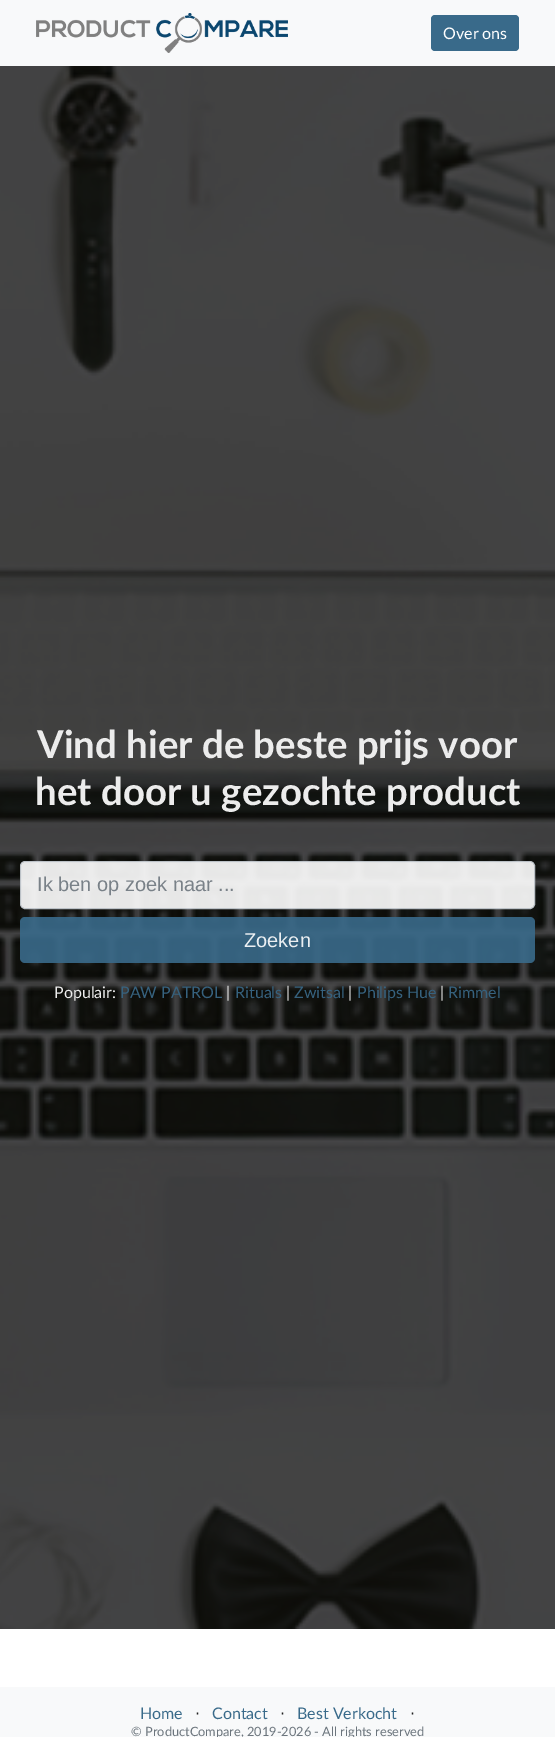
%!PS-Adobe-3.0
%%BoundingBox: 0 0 555 1737
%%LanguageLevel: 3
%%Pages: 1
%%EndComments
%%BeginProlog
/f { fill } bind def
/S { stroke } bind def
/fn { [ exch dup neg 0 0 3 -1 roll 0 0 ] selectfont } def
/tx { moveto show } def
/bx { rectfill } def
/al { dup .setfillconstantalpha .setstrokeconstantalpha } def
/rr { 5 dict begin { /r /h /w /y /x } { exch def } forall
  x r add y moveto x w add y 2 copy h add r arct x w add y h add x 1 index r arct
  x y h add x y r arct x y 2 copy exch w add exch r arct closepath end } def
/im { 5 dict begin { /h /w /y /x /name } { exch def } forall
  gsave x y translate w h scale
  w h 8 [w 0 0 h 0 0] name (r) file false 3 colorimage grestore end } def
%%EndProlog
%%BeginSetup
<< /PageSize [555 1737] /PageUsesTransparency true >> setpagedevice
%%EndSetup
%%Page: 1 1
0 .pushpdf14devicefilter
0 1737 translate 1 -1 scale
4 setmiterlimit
1 setgray
0 0 555 1737 bx
0.973 0.976 0.98 setrgbcolor
0 0 555 66 bx
(image0.raw) 36 13 252 40 im
0.224 0.416 0.541 setrgbcolor
431 15 88 36 4 rr f
/Lato-Regular 16 fn
1 setgray
(Over ons) 443 39 tx
(image1.raw) 0 66 555 1563 im
/Lato-Bold 38.4 fn
0.925 setgray
(Vind hier de beste prijs voor) 37 758 tx
(het door u gezochte product) 35 805 tx
0.9 al
1 setgray
21 862 513 46 4 rr f
0.808 0.831 0.855 setrgbcolor
20.5 861.5 514 47 4.5 rr S
/LiberationSans-Regular 20 fn
1 al
0.475 0.506 0.533 setrgbcolor
(Ik ben op zoek naar ...) 37 891 tx
0.9 al
0.224 0.416 0.541 setrgbcolor
20 917 515 46 5 rr f
1 al
0.922 0.937 0.949 setrgbcolor
(Zoeken) 244 947 tx
/Lato-Regular 16 fn
0.925 setgray
(Populair:) 54 998 tx
0.212 0.384 0.498 setrgbcolor
(PAW PATROL) 120 998 tx
0.925 setgray
(|) 226 998 tx
0.212 0.384 0.498 setrgbcolor
(Rituals) 235 998 tx
0.925 setgray
(|) 286 998 tx
0.212 0.384 0.498 setrgbcolor
(Zwitsal) 294 998 tx
0.925 setgray
(|) 348 998 tx
0.212 0.384 0.498 setrgbcolor
(Philips Hue) 357 998 tx
0.925 setgray
(|) 440 998 tx
0.212 0.384 0.498 setrgbcolor
(Rimmel) 448 998 tx
0.973 0.976 0.98 setrgbcolor
0 1687 555 50 bx
0.224 0.416 0.541 setrgbcolor
(Home) 140 1719 tx
/DejaVuSans-Regular 16 fn
0.133 setgray
(⋅) 195 1719 tx
/Lato-Regular 16 fn
0.224 0.416 0.541 setrgbcolor
(Contact) 212 1719 tx
/DejaVuSans-Regular 16 fn
0.133 setgray
(⋅) 280 1719 tx
/Lato-Regular 16 fn
0.224 0.416 0.541 setrgbcolor
(Best Verkocht) 297 1719 tx
/DejaVuSans-Regular 16 fn
0.133 setgray
(⋅) 410 1719 tx
/Lato-Regular 12.8 fn
0.424 0.459 0.49 setrgbcolor
(© ProductCompare, 2019-2026 - All rights reserved) 131 1736 tx
.poppdf14devicefilter showpage
%%EOF
